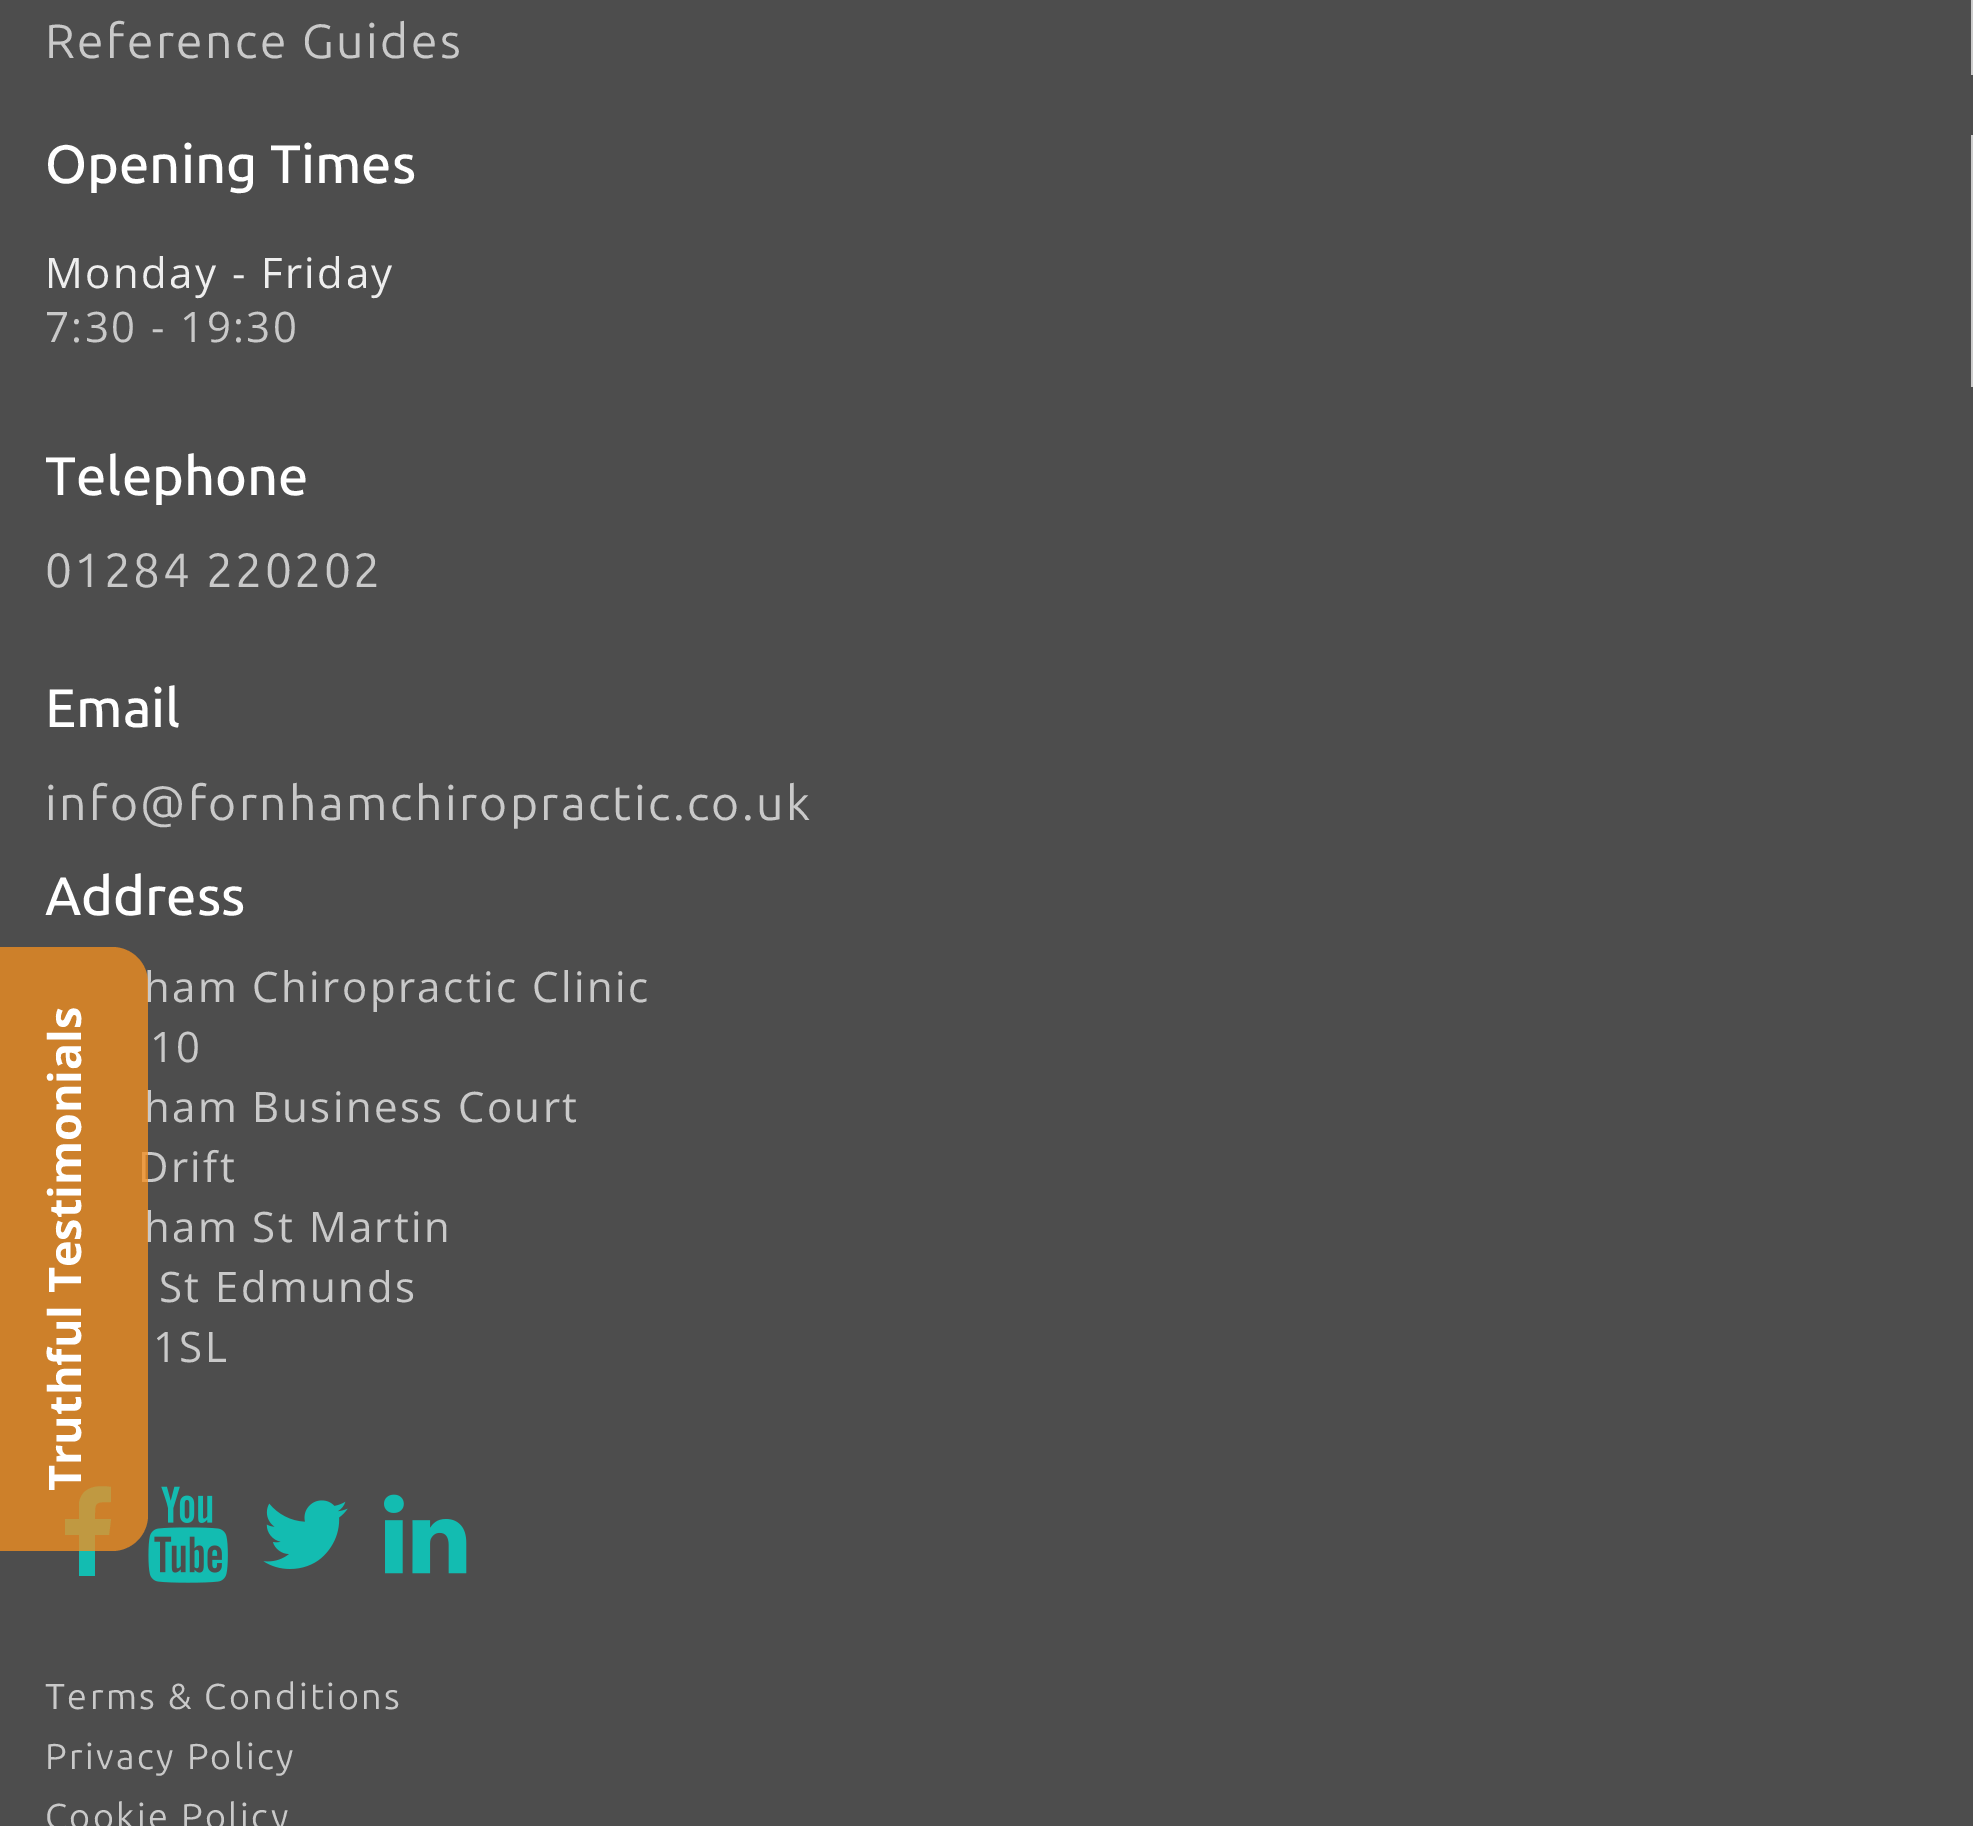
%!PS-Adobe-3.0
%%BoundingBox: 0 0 1973 1826
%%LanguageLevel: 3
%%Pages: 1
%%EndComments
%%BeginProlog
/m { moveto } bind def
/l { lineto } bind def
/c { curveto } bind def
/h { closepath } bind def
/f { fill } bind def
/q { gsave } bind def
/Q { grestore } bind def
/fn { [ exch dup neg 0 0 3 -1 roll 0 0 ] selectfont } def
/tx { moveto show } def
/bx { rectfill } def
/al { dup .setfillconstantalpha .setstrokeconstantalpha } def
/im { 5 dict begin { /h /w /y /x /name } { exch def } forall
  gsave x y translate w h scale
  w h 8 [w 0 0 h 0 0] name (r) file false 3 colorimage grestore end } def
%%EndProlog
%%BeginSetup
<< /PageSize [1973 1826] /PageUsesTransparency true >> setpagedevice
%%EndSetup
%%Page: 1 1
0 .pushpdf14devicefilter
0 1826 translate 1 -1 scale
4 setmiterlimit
0.302 setgray
0 0 1973 1826 bx
0.8 setgray
1971 0 2 75 bx
/Ubuntu-Regular 48 fn
0.788 setgray
45 58 m 2.4 0 (Reference Guides) ashow
0.8 setgray
1971 135 2 252 bx
/Ubuntu-Medium 54 fn
1 setgray
(Opening Times) 45 183 tx
/OpenSans-Regular 42 fn
0.933 setgray
45 288 m 2.4 0 (Monday - Friday) ashow
0.788 setgray
45 342 m 2.4 0 (7:30 - 19:30) ashow
/Ubuntu-Medium 54 fn
1 setgray
(Telephone) 45 495 tx
/Ubuntu-Regular 48 fn
0.788 setgray
45 587 m 2.4 0 (01284 220202) ashow
/Ubuntu-Medium 54 fn
1 setgray
(Email) 45 727 tx
/Ubuntu-Regular 48 fn
0.788 setgray
45 820 m 2.4 0 (info@fornhamchiropractic.co.uk) ashow
/Ubuntu-Medium 54 fn
1 setgray
(Address) 45 915 tx
/OpenSans-Regular 42 fn
0.788 setgray
144 1002 m 2.4 0 (ham Chiropractic Clinic) ashow
150 1062 m 2.4 0 (10) ashow
144 1122 m 2.4 0 (ham Business Court) ashow
138 1182 m 2.4 0 (Drift) ashow
144 1242 m 2.4 0 (ham St Martin) ashow
159 1302 m 2.4 0 (St Edmunds) ashow
153 1362 m 2.4 0 (1SL) ashow
0.075 0.737 0.694 setrgbcolor
111 1487 m 111 1502 l 94 1502 95 1502 95 1519 c 111 1519 l 109 1535 l 95 1535 l 95 1576 l 79 1576 l 79 1535 l 65 1535 l 65 1519 l 79 1519 l 79 1503 l 82 1486 98 1485 111 1487 c h f
(image0.raw) 148 1486 80 97 im
(image1.raw) 263 1500 85 69 im
(image2.raw) 384 1494 83 80 im
/Ubuntu-Regular 36 fn
0.788 setgray
45 1709 m 2.4 0 (Terms & Conditions) ashow
45 1769 m 2.4 0 (Privacy Policy) ashow
45 1829 m 2.4 0 (Cookie Policy) ashow
0.77 al
0.957 0.561 0.122 setrgbcolor
-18 1551 m -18 947 l 112 947 l 132 947 148 963 148 983 c 148 1515 l 148 1535 132 1551 112 1551 c h f
/OpenSans-Bold 45 fn
1 al
1 setgray
q 81 1491 translate -90 rotate 0 0 m (Truthful Testimonials) show Q
.poppdf14devicefilter showpage
%%EOF
